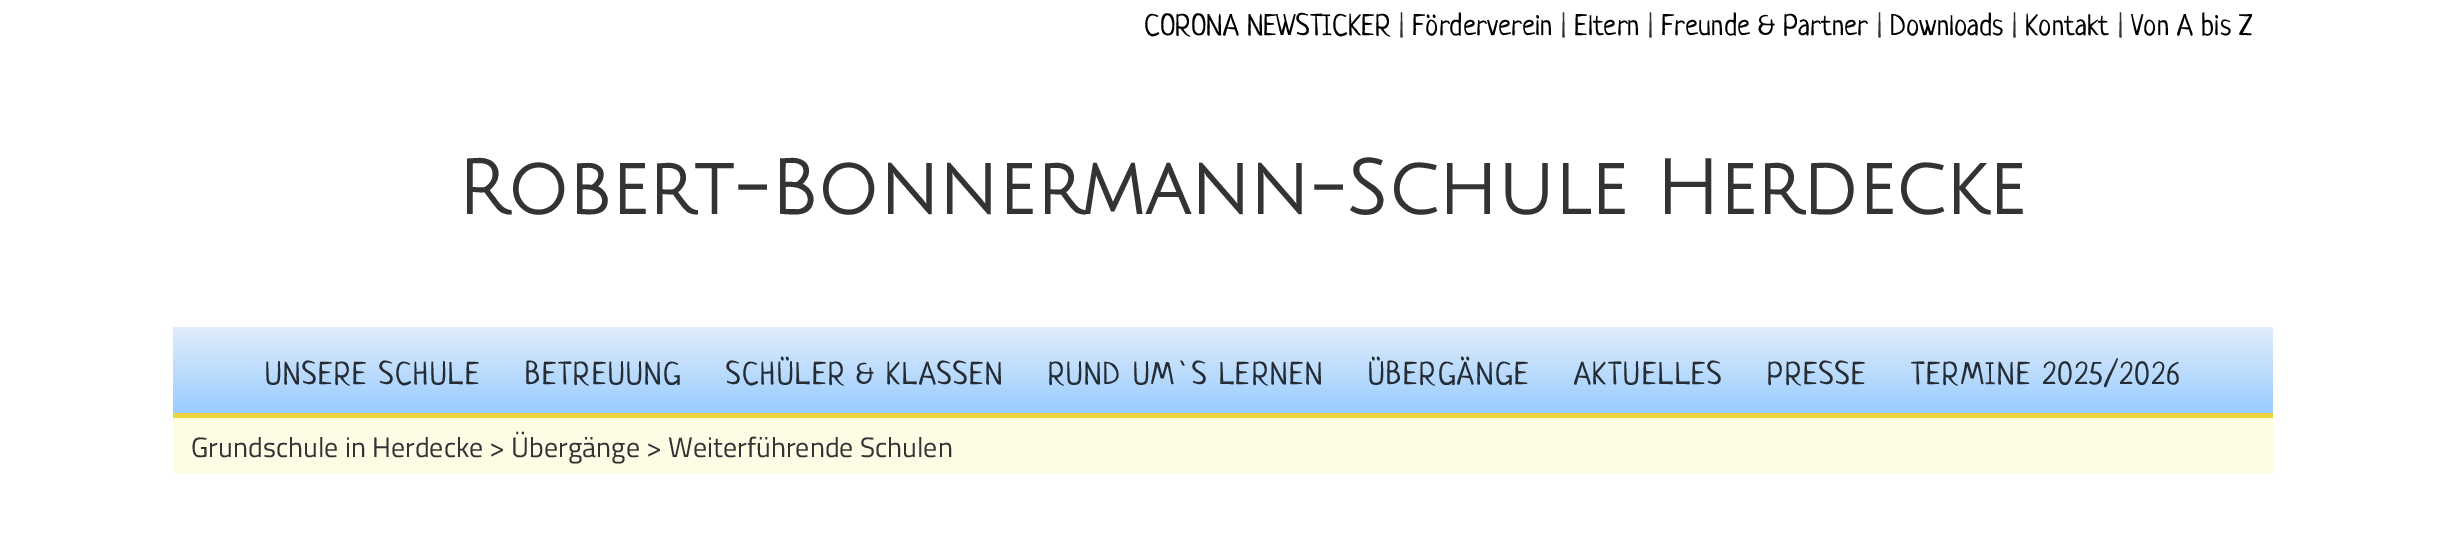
%!PS-Adobe-3.0
%%BoundingBox: 0 0 2445 533
%%LanguageLevel: 3
%%Pages: 1
%%EndComments
%%BeginProlog
/m { moveto } bind def
/l { lineto } bind def
/h { closepath } bind def
/q { gsave } bind def
/Q { grestore } bind def
/fn { [ exch dup neg 0 0 3 -1 roll 0 0 ] selectfont } def
/tx { moveto show } def
/bx { rectfill } def
%%EndProlog
%%BeginSetup
<< /PageSize [2445 533] >> setpagedevice
%%EndSetup
%%Page: 1 1
0 533 translate 1 -1 scale
4 setmiterlimit
1 setgray
0 0 2445 533 bx
/Neucha-Regular 29.75 fn
0 setgray
(CORONA NEWSTICKER) 1144 35 tx
0.2 setgray
(|) 1399 35 tx
0 setgray
(Förderverein) 1412 35 tx
0.2 setgray
(|) 1561 35 tx
0 setgray
(Eltern) 1574 35 tx
0.2 setgray
(|) 1648 35 tx
0 setgray
(Freunde & Partner) 1661 35 tx
0.2 setgray
(|) 1877 35 tx
0 setgray
(Downloads) 1890 35 tx
0.2 setgray
(|) 2012 35 tx
0 setgray
(Kontakt) 2025 35 tx
0.2 setgray
(|) 2118 35 tx
0 setgray
(Von A bis Z) 2131 35 tx
/JuliusSansOne-Bold 75.25 fn
0.2 setgray
(Robert-Bonnermann-Schule Herdecke) 457 214 tx
q 173 327 m 2273 327 l 2273 413 l 173 413 l h clip newpath
<< /ShadingType 2 /ColorSpace /DeviceRGB /Coords [1223 327 1223 413] /Extend [true true] /Function << /FunctionType 2 /Domain [0 1] /C0 [0.882 0.929 0.98] /C1 [0.6 0.8 1] /N 1 >> >> shfill Q
0.922 0.831 0.231 setrgbcolor
173 413 2100 5 bx
/Neucha-Regular 31.5 fn
0.145 0.173 0.2 setrgbcolor
265 384 m 1.75 0 (UNSERE SCHULE) ashow
525 384 m 1.75 0 (BETREUUNG) ashow
726 384 m 1.75 0 (SCHÜLER & KLASSEN) ashow
1048 384 m 1.75 0 (RUND UM`S LERNEN) ashow
1368 384 m 1.75 0 (ÜBERGÄNGE) ashow
1574 384 m 1.75 0 (AKTUELLES) ashow
1767 384 m 1.75 0 (PRESSE) ashow
1911 384 m 1.75 0 (TERMINE 2025/2026) ashow
1 0.988 0.902 setrgbcolor
173 418 2100 56 bx
/TitilliumWeb-Regular 28 fn
0.2 setgray
(Grundschule in Herdecke > Übergänge > Weiterführende Schulen) 191 457 tx
showpage
%%EOF
